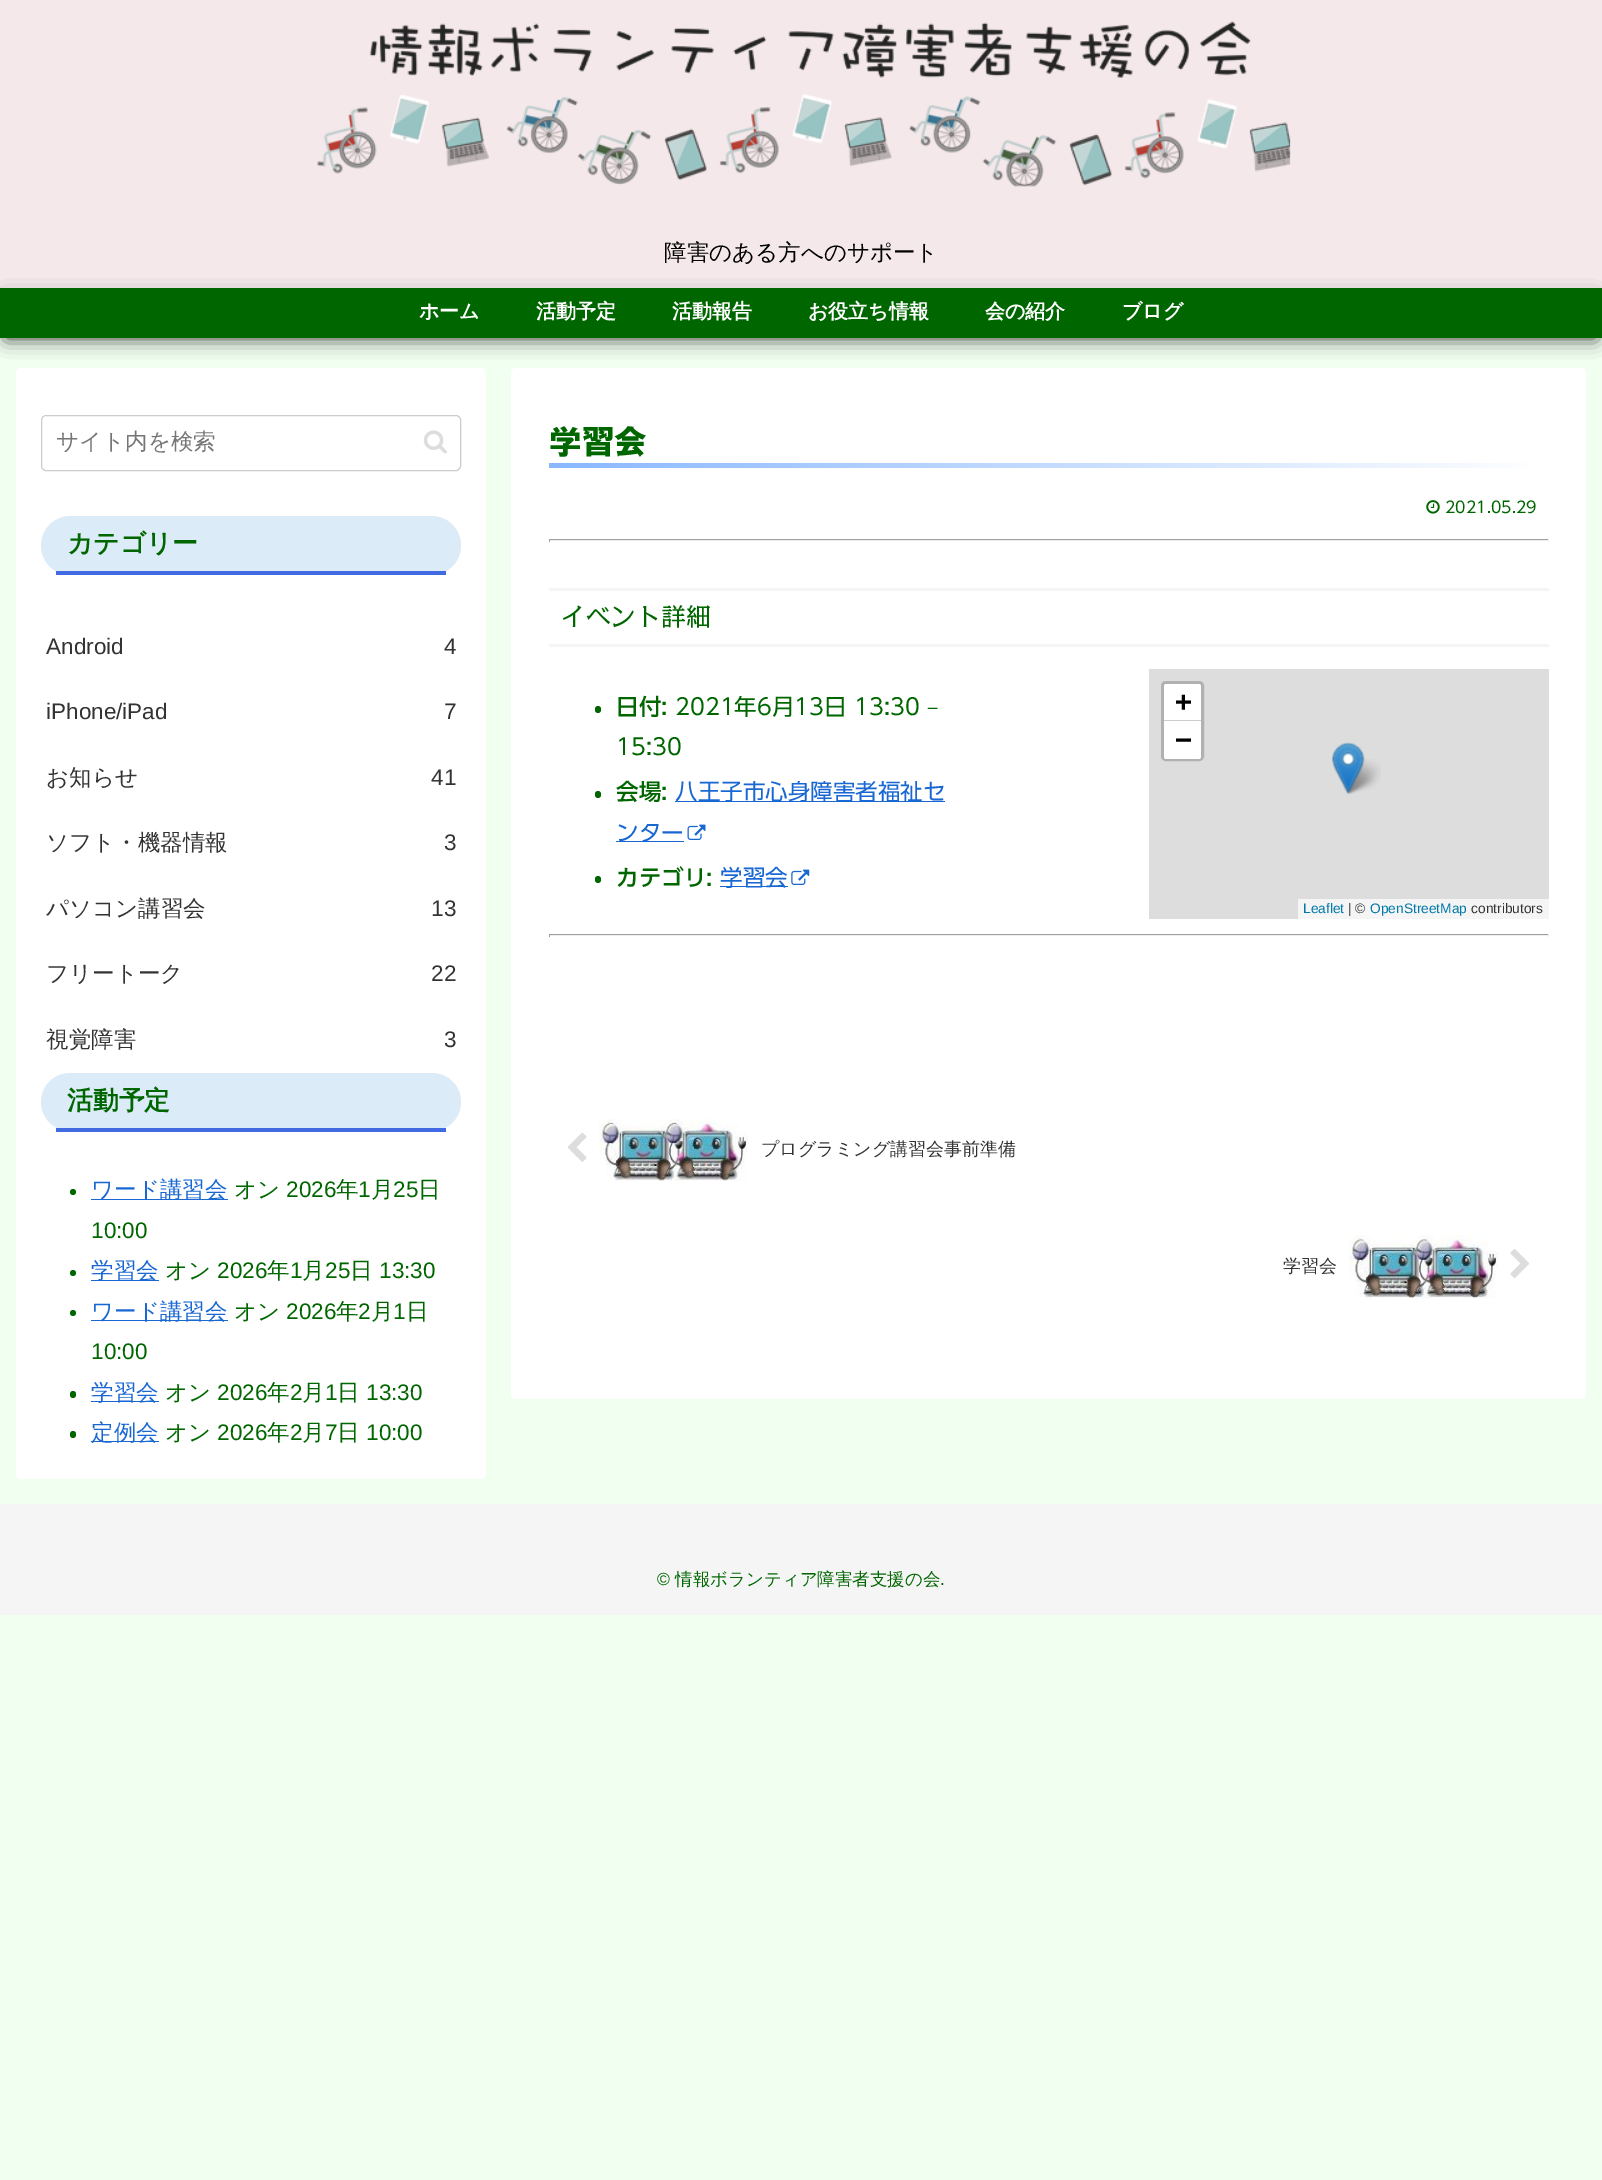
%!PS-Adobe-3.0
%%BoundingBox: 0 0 1602 2180
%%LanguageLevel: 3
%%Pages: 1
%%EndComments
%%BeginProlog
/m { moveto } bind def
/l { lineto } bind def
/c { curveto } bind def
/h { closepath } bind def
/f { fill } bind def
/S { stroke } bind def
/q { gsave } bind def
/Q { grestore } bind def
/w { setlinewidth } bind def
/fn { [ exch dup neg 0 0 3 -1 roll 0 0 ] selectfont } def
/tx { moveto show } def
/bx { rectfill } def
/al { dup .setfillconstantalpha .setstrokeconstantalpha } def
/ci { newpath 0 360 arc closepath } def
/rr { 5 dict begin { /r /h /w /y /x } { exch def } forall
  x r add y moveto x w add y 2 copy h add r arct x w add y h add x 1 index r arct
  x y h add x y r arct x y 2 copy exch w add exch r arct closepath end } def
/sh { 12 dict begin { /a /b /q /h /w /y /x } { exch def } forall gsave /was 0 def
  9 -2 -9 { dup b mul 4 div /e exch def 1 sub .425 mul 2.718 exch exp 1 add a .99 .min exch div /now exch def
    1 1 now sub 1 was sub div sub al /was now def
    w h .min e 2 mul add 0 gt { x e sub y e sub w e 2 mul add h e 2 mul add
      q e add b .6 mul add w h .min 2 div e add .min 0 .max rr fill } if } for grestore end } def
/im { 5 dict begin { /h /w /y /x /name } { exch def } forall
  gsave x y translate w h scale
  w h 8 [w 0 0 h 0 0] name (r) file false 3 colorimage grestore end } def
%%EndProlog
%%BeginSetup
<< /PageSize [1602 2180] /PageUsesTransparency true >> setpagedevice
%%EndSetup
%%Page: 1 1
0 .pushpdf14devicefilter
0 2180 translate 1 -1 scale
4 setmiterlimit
0.941 1 0.941 setrgbcolor
0 0 1602 2180 bx
0.957 0.91 0.918 setrgbcolor
0 0 1602 288 bx
(image0.raw) 317 21 974 166 im
/WenQuanYiZenHei-Medium 22.5 fn
0 setgray
(障害のある方へのサポート) 664 260 tx
6 300 1590 38 0 9.5 0.8 sh
0 0.4 0 setrgbcolor
0 288 1602 50 bx
/WenQuanYiZenHei-Bold 20 fn
1 setgray
(ホーム) 419 318 tx
(活動予定) 536 318 tx
(活動報告) 672 318 tx
(お役立ち情報) 808 318 tx
(会の紹介) 985 318 tx
(ブログ) 1122 318 tx
16 368 470 1111 5 rr f
0.8 setgray
41.5 415.5 419 55 4.5 rr S
/WenQuanYiZenHei-Medium 22.5 fn
0.459 setgray
(サイト内を検索) 56 449 tx
(image1.raw) 423 430 24 24 im
0.859 0.922 0.973 setrgbcolor
41 516 420 59 29.5 rr f
0.255 0.412 0.882 setrgbcolor
56 571 390 4 bx
/WenQuanYiZenHei-Bold 25.75 fn
0 0.4 0 setrgbcolor
(カテゴリー) 67 552 tx
/LiberationSans-Regular 22.5 fn
0.2 setgray
(Android) 46 654 tx
(4) 444 654 tx
(iPhone/iPad) 46 719 tx
(7) 444 719 tx
/WenQuanYiZenHei-Medium 22.5 fn
(お知らせ) 46 785 tx
/LiberationSans-Regular 22.5 fn
(41) 431 785 tx
/WenQuanYiZenHei-Medium 22.5 fn
(ソフト・機器情報) 46 850 tx
/LiberationSans-Regular 22.5 fn
(3) 444 850 tx
/WenQuanYiZenHei-Medium 22.5 fn
(パソコン講習会) 46 916 tx
/LiberationSans-Regular 22.5 fn
(13) 431 916 tx
/WenQuanYiZenHei-Medium 22.5 fn
(フリートーク) 46 981 tx
/LiberationSans-Regular 22.5 fn
(22) 431 981 tx
/WenQuanYiZenHei-Medium 22.5 fn
(視覚障害) 46 1047 tx
/LiberationSans-Regular 22.5 fn
(3) 444 1047 tx
0.859 0.922 0.973 setrgbcolor
41 1073 420 58 29 rr f
0.255 0.412 0.882 setrgbcolor
56 1128 390 4 bx
/WenQuanYiZenHei-Bold 25.75 fn
0 0.4 0 setrgbcolor
(活動予定) 67 1109 tx
73 1192 3 ci f
0.098 0.404 0.824 setrgbcolor
91 1199 137 1 bx
/WenQuanYiZenHei-Medium 22.5 fn
(ワード講習会) 91 1197 tx
0 0.4 0 setrgbcolor
(オン) 234 1197 tx
/LiberationSans-Regular 22.5 fn
(2026) 286 1197 tx
/WenQuanYiZenHei-Medium 22.5 fn
(年) 336 1197 tx
/LiberationSans-Regular 22.5 fn
(1) 358 1197 tx
/WenQuanYiZenHei-Medium 22.5 fn
(月) 371 1197 tx
/LiberationSans-Regular 22.5 fn
(25) 393 1197 tx
/WenQuanYiZenHei-Medium 22.5 fn
(日) 418 1197 tx
/LiberationSans-Regular 22.5 fn
(10:00) 91 1238 tx
73 1273 3 ci f
0.098 0.404 0.824 setrgbcolor
91 1280 68 1 bx
/WenQuanYiZenHei-Medium 22.5 fn
(学習会) 91 1278 tx
0 0.4 0 setrgbcolor
(オン) 165 1278 tx
/LiberationSans-Regular 22.5 fn
(2026) 217 1278 tx
/WenQuanYiZenHei-Medium 22.5 fn
(年) 267 1278 tx
/LiberationSans-Regular 22.5 fn
(1) 290 1278 tx
/WenQuanYiZenHei-Medium 22.5 fn
(月) 302 1278 tx
/LiberationSans-Regular 22.5 fn
(25) 325 1278 tx
/WenQuanYiZenHei-Medium 22.5 fn
(日) 350 1278 tx
/LiberationSans-Regular 22.5 fn
(13:30) 379 1278 tx
73 1313 3 ci f
0.098 0.404 0.824 setrgbcolor
91 1320 137 1 bx
/WenQuanYiZenHei-Medium 22.5 fn
(ワード講習会) 91 1319 tx
0 0.4 0 setrgbcolor
(オン) 234 1319 tx
/LiberationSans-Regular 22.5 fn
(2026) 286 1319 tx
/WenQuanYiZenHei-Medium 22.5 fn
(年) 336 1319 tx
/LiberationSans-Regular 22.5 fn
(2) 358 1319 tx
/WenQuanYiZenHei-Medium 22.5 fn
(月) 371 1319 tx
/LiberationSans-Regular 22.5 fn
(1) 393 1319 tx
/WenQuanYiZenHei-Medium 22.5 fn
(日) 406 1319 tx
/LiberationSans-Regular 22.5 fn
(10:00) 91 1359 tx
70 1391 6 7 3 rr f
0.098 0.404 0.824 setrgbcolor
91 1401 68 1 bx
/WenQuanYiZenHei-Medium 22.5 fn
(学習会) 91 1400 tx
0 0.4 0 setrgbcolor
(オン) 165 1400 tx
/LiberationSans-Regular 22.5 fn
(2026) 217 1400 tx
/WenQuanYiZenHei-Medium 22.5 fn
(年) 267 1400 tx
/LiberationSans-Regular 22.5 fn
(2) 290 1400 tx
/WenQuanYiZenHei-Medium 22.5 fn
(月) 302 1400 tx
/LiberationSans-Regular 22.5 fn
(1) 325 1400 tx
/WenQuanYiZenHei-Medium 22.5 fn
(日) 337 1400 tx
/LiberationSans-Regular 22.5 fn
(13:30) 366 1400 tx
70 1431 6 7 3 rr f
0.098 0.404 0.824 setrgbcolor
91 1441 68 1 bx
/WenQuanYiZenHei-Medium 22.5 fn
(定例会) 91 1440 tx
0 0.4 0 setrgbcolor
(オン) 165 1440 tx
/LiberationSans-Regular 22.5 fn
(2026) 217 1440 tx
/WenQuanYiZenHei-Medium 22.5 fn
(年) 267 1440 tx
/LiberationSans-Regular 22.5 fn
(2) 290 1440 tx
/WenQuanYiZenHei-Medium 22.5 fn
(月) 302 1440 tx
/LiberationSans-Regular 22.5 fn
(7) 325 1440 tx
/WenQuanYiZenHei-Medium 22.5 fn
(日) 337 1440 tx
/LiberationSans-Regular 22.5 fn
(10:00) 366 1440 tx
1 setgray
511 368 1075 1031 5 rr f
/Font-Bold 32.5 fn
0 0.4 0 setrgbcolor
(学習会) 549 454 tx
q 549 463 m 1528 463 l 1528 468 l 549 468 l h clip newpath
<< /ShadingType 2 /ColorSpace /DeviceRGB /Coords [549 465 1549 465] /Extend [true true] /Function << /FunctionType 2 /Domain [0 1] /C0 [0.537 0.722 1] /C1 [1 1 1] /N 1 >> >> shfill Q
(image2.raw) 1426 500 14 14 im
/Font-Regular 15.75 fn
(2021.05.29) 1445 513 tx
0.624 setgray
549 539 1000 1 bx
0.933 setgray
1548 539 1 3 bx
549 540 1000 1 bx
0.624 setgray
549 539 1 3 bx
0.961 setgray
549 588 1000 3 bx
549 644 1000 3 bx
/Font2-Regular 25 fn
0 0.4 0 setrgbcolor
(イベント詳細) 561 626 tx
595 706 6 7 3 rr f
/Font-Medium 22.5 fn
(日付:) 616 715 tx
/Font-Regular 22.5 fn
(2021年6月13日 13:30 –) 675 715 tx
(15:30) 616 755 tx
/Font-Medium 22.5 fn
(会場:) 616 800 tx
595 791 6 7 3 rr f
0.098 0.404 0.824 setrgbcolor
675 801 270 1 bx
/Font-Regular 22.5 fn
(八王子市心身障害者福祉セ) 675 800 tx
616 841 68 1 bx
(ンター) 616 841 tx
(image3.raw) 687 824 19 16 im
0 0.4 0 setrgbcolor
595 876 6 7 3 rr f
/Font-Medium 22.5 fn
(カテゴリ:) 616 886 tx
0.098 0.404 0.824 setrgbcolor
720 886 68 1 bx
/Font-Regular 22.5 fn
(学習会) 720 886 tx
(image4.raw) 791 869 19 16 im
0.867 setgray
1149 669 400 250 bx
0.694 setgray
3 w
1162.5 682.5 40 77 3.5 rr S
1 setgray
1166.5 684 m 1198.5 684 l 1200 684 1201 685 1201 686.5 c 1201 721 l 1164 721 l 1164 686.5 l 1164 685 1165 684 1166.5 684 c h f
0.8 setgray
1164 720 37 1 bx
/DejaVuSansMono-Bold 28 fn
0 setgray
(+) 1175 711 tx
1 setgray
1164 721 m 1201 721 l 1201 756.5 l 1201 758 1200 759 1198.5 759 c 1166.5 759 l 1165 759 1164 758 1164 756.5 c h f
0 setgray
(−) 1175 749 tx
0.961 setgray
1298 899 251 20 bx
/LiberationSans-Regular 13.75 fn
0 0.471 0.659 setrgbcolor
(Leaflet) 1303 913 tx
0.2 setgray
(| ©) 1348 913 tx
0 0.471 0.659 setrgbcolor
(OpenStreetMap) 1370 913 tx
0.2 setgray
(contributors) 1471 913 tx
(image6.raw) 1344 758 37 36 im
(image5.raw) 1332 742 33 53 im
0.624 setgray
549 934 1000 1 bx
0.933 setgray
1548 934 1 3 bx
549 935 1000 1 bx
0.624 setgray
549 934 1 3 bx
(image7.raw) 567 1132 20 30 im
(image8.raw) 599 1119 149 62 im
/WenQuanYiZenHei-Medium 18 fn
0.2 setgray
(プログラミング講習会事前準備) 761 1155 tx
(学習会) 1283 1272 tx
(image9.raw) 1349 1235 150 64 im
(image10.raw) 1510 1249 19 29 im
0.961 setgray
0 1504 1602 111 bx
/LiberationSans-Regular 17.5 fn
0 0.4 0 setrgbcolor
(©) 657 1585 tx
/WenQuanYiZenHei-Medium 17.5 fn
(情報ボランティア障害者支援の会) 675 1585 tx
/LiberationSans-Regular 17.5 fn
(.) 940 1585 tx
.poppdf14devicefilter showpage
%%EOF
